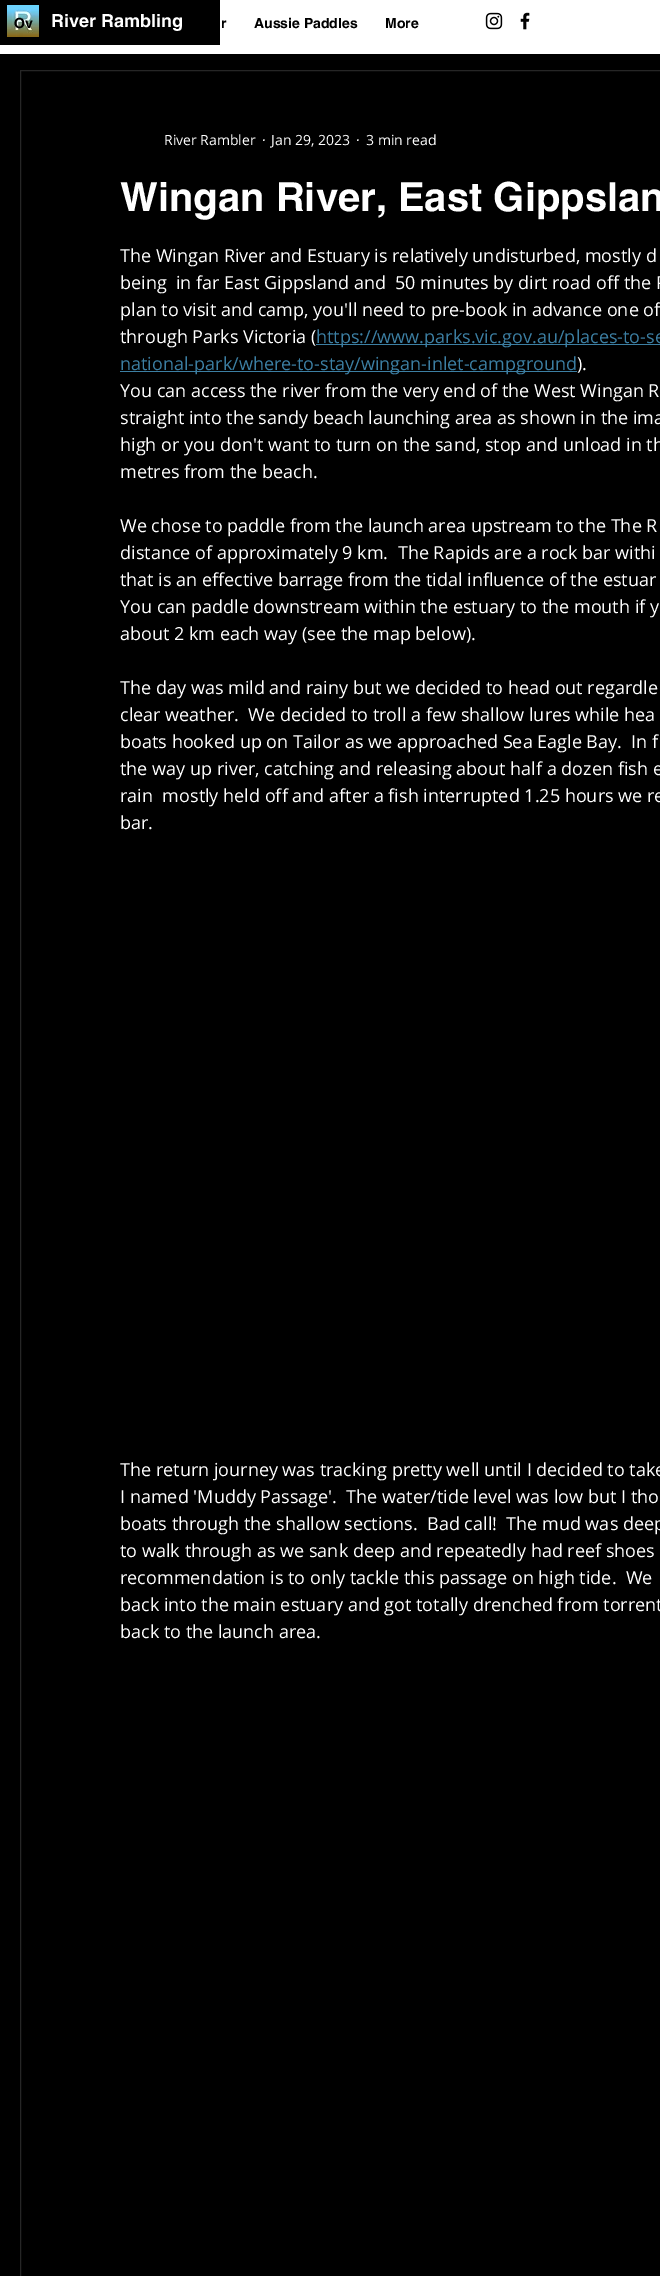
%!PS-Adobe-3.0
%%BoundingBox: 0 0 660 2276
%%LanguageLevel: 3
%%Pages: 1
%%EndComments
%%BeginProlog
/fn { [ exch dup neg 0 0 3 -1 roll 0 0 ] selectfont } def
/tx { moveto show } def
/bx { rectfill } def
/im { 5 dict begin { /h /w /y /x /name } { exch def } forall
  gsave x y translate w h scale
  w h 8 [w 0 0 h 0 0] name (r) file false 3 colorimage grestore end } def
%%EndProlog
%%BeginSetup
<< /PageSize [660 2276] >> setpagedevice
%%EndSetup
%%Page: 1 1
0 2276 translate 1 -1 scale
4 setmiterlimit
0 setgray
0 0 660 2276 bx
1 setgray
0 0 660 54 bx
0 setgray
0 0 220 45 bx
(image0.raw) 7 5 32 32 im
/helvetica-Bold 18 fn
1 setgray
(River Rambling) 51 27 tx
/helvetica-Bold 14 fn
0 setgray
(Ov) 14 28 tx
(r) 221 28 tx
(Aussie Paddles) 254 28 tx
(More) 385 28 tx
(image1.raw) 485 12 18 18 im
(image2.raw) 520 12 10 18 im
0.149 setgray
20.5 70.5 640 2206 rectstroke
/OpenSans-Regular 14 fn
1 setgray
(River Rambler) 164 145 tx
(·) 262 145 tx
(Jan 29, 2023) 271 145 tx
(·) 356 145 tx
(3 min read) 366 145 tx
/helvetica-Bold 40 fn
(Wingan River, East Gippslan) 120 211 tx
/OpenSans-Regular 18 fn
(The Wingan River and Estuary is relatively undisturbed, mostly d) 120 262 tx
(being  in far East Gippsland and  50 minutes by dirt road off the P) 120 289 tx
(plan to visit and camp, you'll need to pre-book in advance one of) 120 316 tx
(through Parks Victoria \() 120 343 tx
0.235 0.498 0.639 setrgbcolor
316 344 344 1 bx
(https://www.parks.vic.gov.au/places-to-se) 316 343 tx
120 371 457 1 bx
(national-park/where-to-stay/wingan-inlet-campground) 120 370 tx
1 setgray
(\).) 577 370 tx
(You can access the river from the very end of the West Wingan R) 120 397 tx
(straight into the sandy beach launching area as shown in the ima) 120 424 tx
(high or you don't want to turn on the sand, stop and unload in th) 120 451 tx
(metres from the beach.) 120 478 tx
(We chose to paddle from the launch area upstream to the The R) 120 532 tx
(distance of approximately 9 km.  The Rapids are a rock bar withi) 120 559 tx
(that is an effective barrage from the tidal influence of the estuar) 120 586 tx
(You can paddle downstream within the estuary to the mouth if y) 120 613 tx
(about 2 km each way \(see the map below\).) 120 640 tx
(The day was mild and rainy but we decided to head out regardle) 120 694 tx
(clear weather.  We decided to troll a few shallow lures while hea) 120 721 tx
(boats hooked up on Tailor as we approached Sea Eagle Bay.  In f) 120 748 tx
(the way up river, catching and releasing about half a dozen fish e) 120 775 tx
(rain  mostly held off and after a fish interrupted 1.25 hours we re) 120 802 tx
(bar.) 120 829 tx
(The return journey was tracking pretty well until I decided to take) 120 1476 tx
(I named 'Muddy Passage'.  The water/tide level was low but I tho) 120 1503 tx
(boats through the shallow sections.  Bad call!  The mud was deep) 120 1530 tx
(to walk through as we sank deep and repeatedly had reef shoes) 120 1557 tx
(recommendation is to only tackle this passage on high tide.  We) 120 1584 tx
(back into the main estuary and got totally drenched from torrent) 120 1611 tx
(back to the launch area.) 120 1638 tx
showpage
%%EOF
